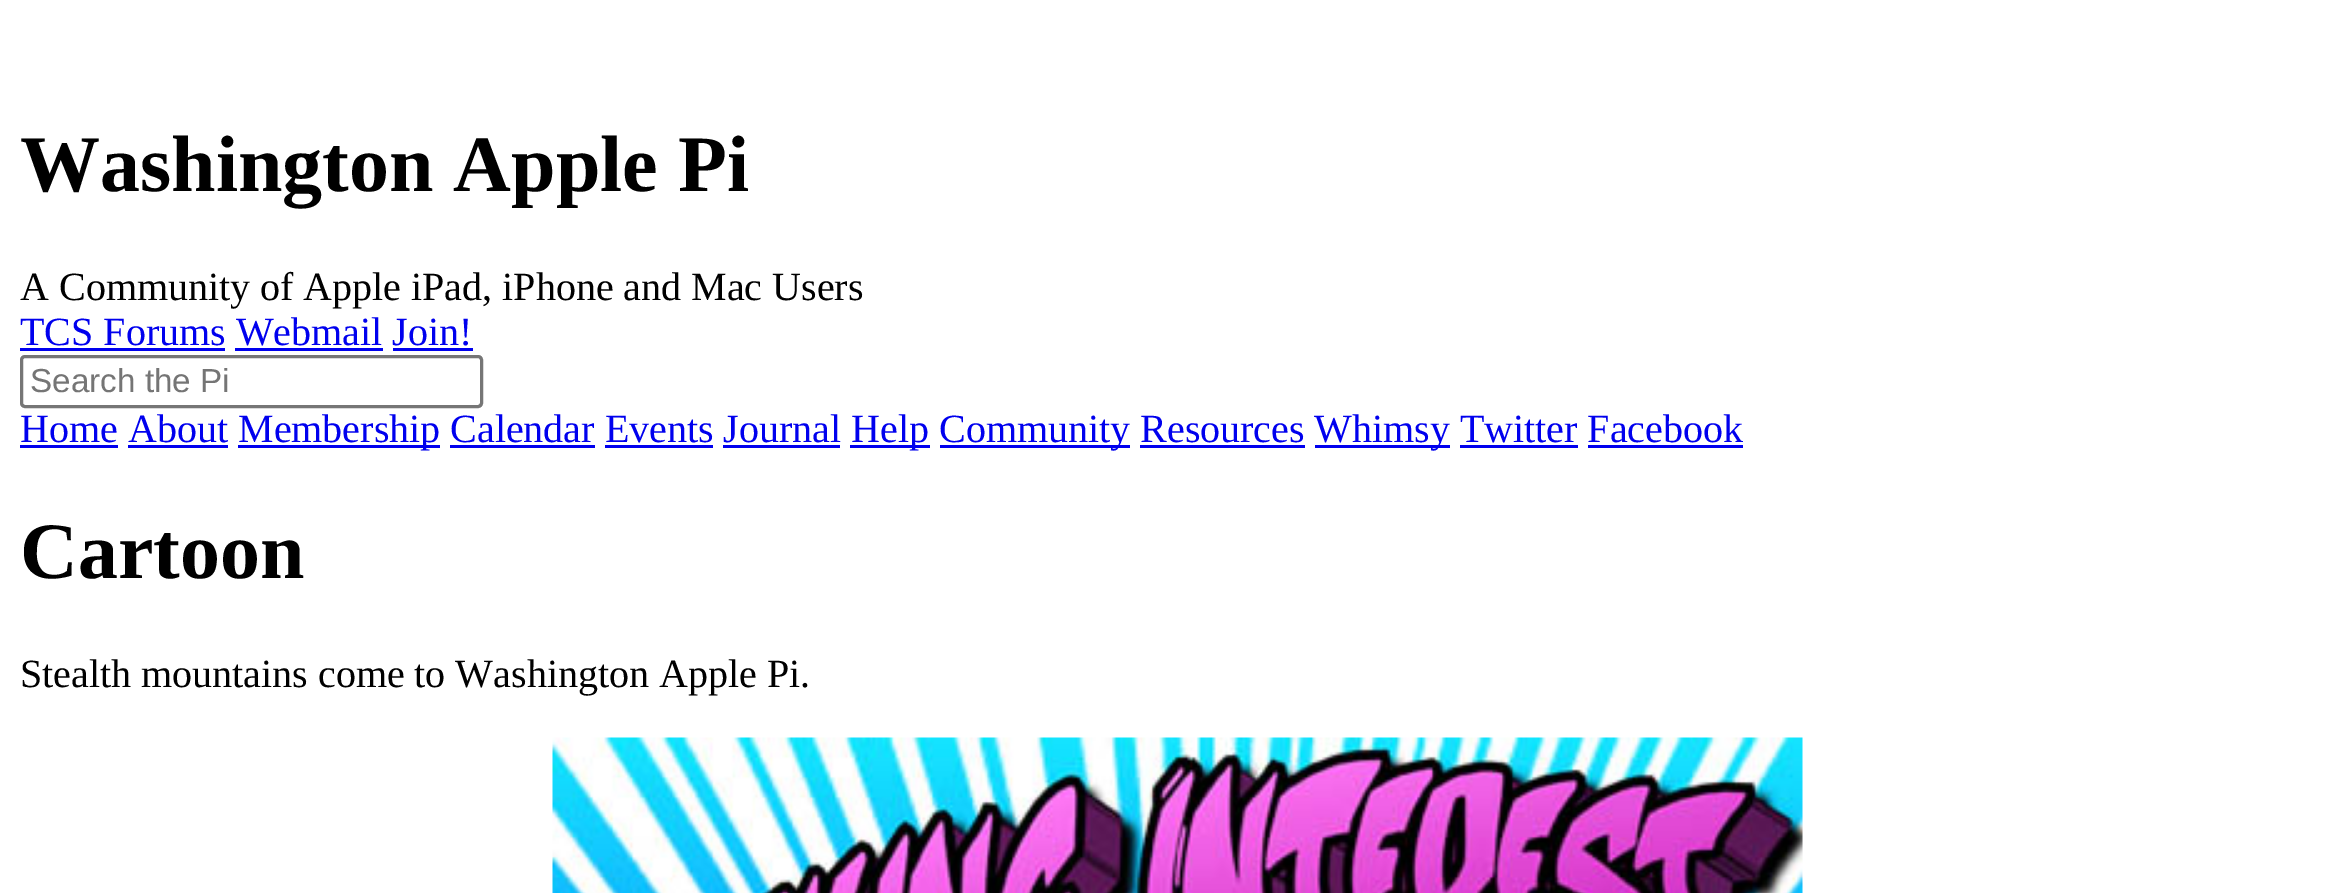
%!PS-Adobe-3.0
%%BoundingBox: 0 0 2352 893
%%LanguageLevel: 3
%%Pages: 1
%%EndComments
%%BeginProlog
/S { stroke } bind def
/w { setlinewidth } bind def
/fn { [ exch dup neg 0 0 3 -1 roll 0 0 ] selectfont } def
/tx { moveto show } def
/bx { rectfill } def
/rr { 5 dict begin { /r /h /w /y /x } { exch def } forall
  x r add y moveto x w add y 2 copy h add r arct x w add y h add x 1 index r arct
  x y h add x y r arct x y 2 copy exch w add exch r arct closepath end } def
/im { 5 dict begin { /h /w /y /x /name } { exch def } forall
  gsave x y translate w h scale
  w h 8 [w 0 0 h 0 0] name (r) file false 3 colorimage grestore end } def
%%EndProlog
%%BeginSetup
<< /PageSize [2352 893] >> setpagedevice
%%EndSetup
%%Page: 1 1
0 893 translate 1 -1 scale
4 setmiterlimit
1 setgray
0 0 2352 893 bx
/LiberationSerif-Bold 80 fn
0 setgray
(Washington Apple Pi) 20 191 tx
/LiberationSerif-Regular 40 fn
(A Community of Apple iPad, iPhone and Mac Users) 20 300 tx
0 0 0.933 setrgbcolor
(TCS Forums Webmail Join!) 20 345 tx
20 348 205 3 bx
235 348 148 3 bx
393 348 80 3 bx
0.463 setgray
3 w
21.5 356.5 460 50 3.5 rr S
/LiberationSans-Regular 33.25 fn
0.459 setgray
(Search the Pi) 30 392 tx
/LiberationSerif-Regular 40 fn
0 0 0.933 setrgbcolor
(Home About) 20 442 tx
20 445 98 3 bx
238 445 202 3 bx
(Membership Calendar Events Journal) 238 442 tx
850 445 80 3 bx
(Help) 851 442 tx
940 445 190 3 bx
(Community Resources) 939 442 tx
1315 445 135 3 bx
(Whimsy Twitter Facebook) 1314 442 tx
128 445 100 3 bx
450 445 145 3 bx
605 445 108 3 bx
723 445 117 3 bx
1140 445 165 3 bx
1460 445 118 3 bx
1588 445 155 3 bx
/LiberationSerif-Bold 80 fn
0 setgray
(Cartoon) 20 578 tx
/LiberationSerif-Regular 40 fn
(Stealth mountains come to Washington Apple Pi.) 20 687 tx
(image0.raw) 552 737 1251 156 im
showpage
%%EOF
